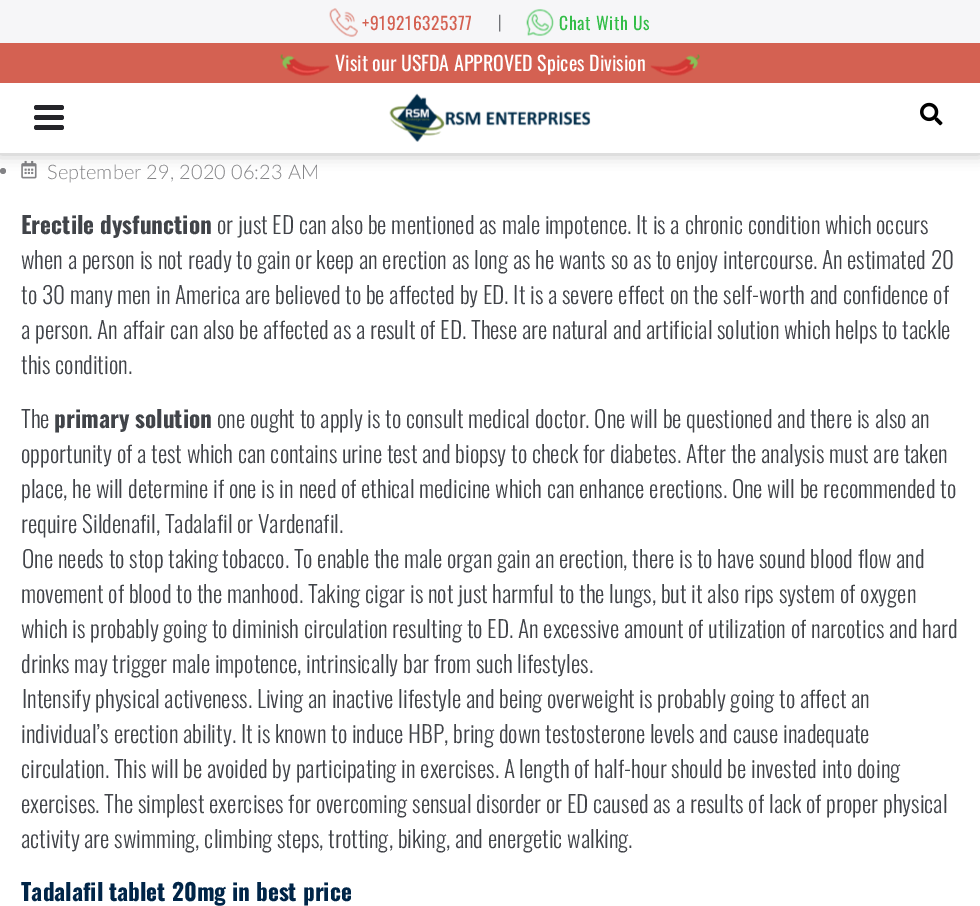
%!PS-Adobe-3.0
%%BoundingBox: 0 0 980 906
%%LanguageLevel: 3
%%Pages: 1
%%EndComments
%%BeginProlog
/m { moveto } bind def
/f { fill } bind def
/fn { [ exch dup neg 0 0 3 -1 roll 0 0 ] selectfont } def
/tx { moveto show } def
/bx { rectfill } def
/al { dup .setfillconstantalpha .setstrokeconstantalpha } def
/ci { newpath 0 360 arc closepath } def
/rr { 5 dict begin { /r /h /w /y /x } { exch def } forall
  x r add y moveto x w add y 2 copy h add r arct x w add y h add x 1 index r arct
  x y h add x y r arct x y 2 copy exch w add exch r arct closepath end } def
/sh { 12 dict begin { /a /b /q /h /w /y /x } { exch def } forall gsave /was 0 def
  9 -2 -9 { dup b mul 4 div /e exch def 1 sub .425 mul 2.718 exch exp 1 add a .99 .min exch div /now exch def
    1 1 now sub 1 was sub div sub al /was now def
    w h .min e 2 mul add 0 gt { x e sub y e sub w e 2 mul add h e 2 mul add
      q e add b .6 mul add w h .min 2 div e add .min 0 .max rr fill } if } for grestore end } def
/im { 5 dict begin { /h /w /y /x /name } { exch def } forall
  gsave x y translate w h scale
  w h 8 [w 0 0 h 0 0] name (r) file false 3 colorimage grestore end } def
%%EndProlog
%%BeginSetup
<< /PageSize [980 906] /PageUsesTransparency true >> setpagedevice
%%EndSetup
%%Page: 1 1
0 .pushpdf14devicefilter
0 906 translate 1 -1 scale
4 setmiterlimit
1 setgray
0 0 980 906 bx
0.514 0.514 0.525 setrgbcolor
3 171 3 ci f
(image6.raw) 21 160 16 19 im
0 setgray
-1 -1 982 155 0 7.5 0.25 sh
1 setgray
0 83 980 70 bx
0.965 0.965 0.973 setrgbcolor
0 0 980 43 bx
(image0.raw) 329 8 29 29 im
/Oswald-Regular 17.5 fn
0.831 0.38 0.322 setrgbcolor
362 30 m 0.6 0 (+919216325377) ashow
/Oswald-ExtraLight 17.5 fn
0.255 0.267 0.286 setrgbcolor
(|) 498 29 tx
(image1.raw) 526 9 28 27 im
/Oswald-Regular 17.5 fn
0.196 0.741 0.278 setrgbcolor
559 30 m 0.6 0 (Chat With Us) ashow
0.831 0.38 0.322 setrgbcolor
0 43 980 40 bx
(image2.raw) 280 54 50 22 im
/Oswald-Regular 20 fn
1 setgray
(Visit our USFDA APPROVED Spices Division) 335 71 tx
(image3.raw) 650 54 50 22 im
0.141 0.141 0.161 setrgbcolor
34 115 30 5 2.5 rr f
34 105 30 5 2.5 rr f
34 125 30 5 2.5 rr f
(image4.raw) 389 93 202 49 im
(image5.raw) 920 102 23 24 im
/Lato-Light 20 fn
0.514 0.514 0.525 setrgbcolor
(September 29, 2020 06:23 AM) 47 179 tx
/Oswald-Bold 23.35 fn
0.255 0.267 0.286 setrgbcolor
(Erectile dysfunction) 21 234 tx
/Oswald-Light 23.35 fn
(or just ED can also be mentioned as male impotence. It is a chronic condition which occurs) 217 234 tx
(when a person is not ready to gain or keep an erection as long as he wants so as to enjoy intercourse. An estimated 20) 21 269 tx
(to 30 many men in America are believed to be affected by ED. It is a severe effect on the self-worth and confidence of) 21 304 tx
(a person. An affair can also be affected as a result of ED. These are natural and artificial solution which helps to tackle) 21 339 tx
(this condition.) 21 374 tx
(The) 21 428 tx
/Oswald-Bold 23.35 fn
(primary solution) 54 428 tx
/Oswald-Light 23.35 fn
(one ought to apply is to consult medical doctor. One will be questioned and there is also an) 217 428 tx
(opportunity of a test which can contains urine test and biopsy to check for diabetes. After the analysis must are taken) 21 463 tx
(place, he will determine if one is in need of ethical medicine which can enhance erections. One will be recommended to) 21 498 tx
(require Sildenafil, Tadalafil or Vardenafil.) 21 533 tx
(One needs to stop taking tobacco. To enable the male organ gain an erection, there is to have sound blood flow and) 22 568 tx
(movement of blood to the manhood. Taking cigar is not just harmful to the lungs, but it also rips system of oxygen) 21 603 tx
(which is probably going to diminish circulation resulting to ED. An excessive amount of utilization of narcotics and hard) 21 638 tx
(drinks may trigger male impotence, intrinsically bar from such lifestyles.) 21 673 tx
(Intensify physical activeness. Living an inactive lifestyle and being overweight is probably going to affect an) 22 708 tx
(individual’s erection ability. It is known to induce HBP, bring down testosterone levels and cause inadequate) 21 743 tx
(circulation. This will be avoided by participating in exercises. A length of half-hour should be invested into doing) 21 778 tx
(exercises. The simplest exercises for overcoming sensual disorder or ED caused as a results of lack of proper physical) 21 813 tx
(activity are swimming, climbing steps, trotting, biking, and energetic walking.) 21 848 tx
/Oswald-Bold 23.35 fn
0 0.145 0.282 setrgbcolor
(Tadalafil tablet 20mg in best price) 21 901 tx
.poppdf14devicefilter showpage
%%EOF
